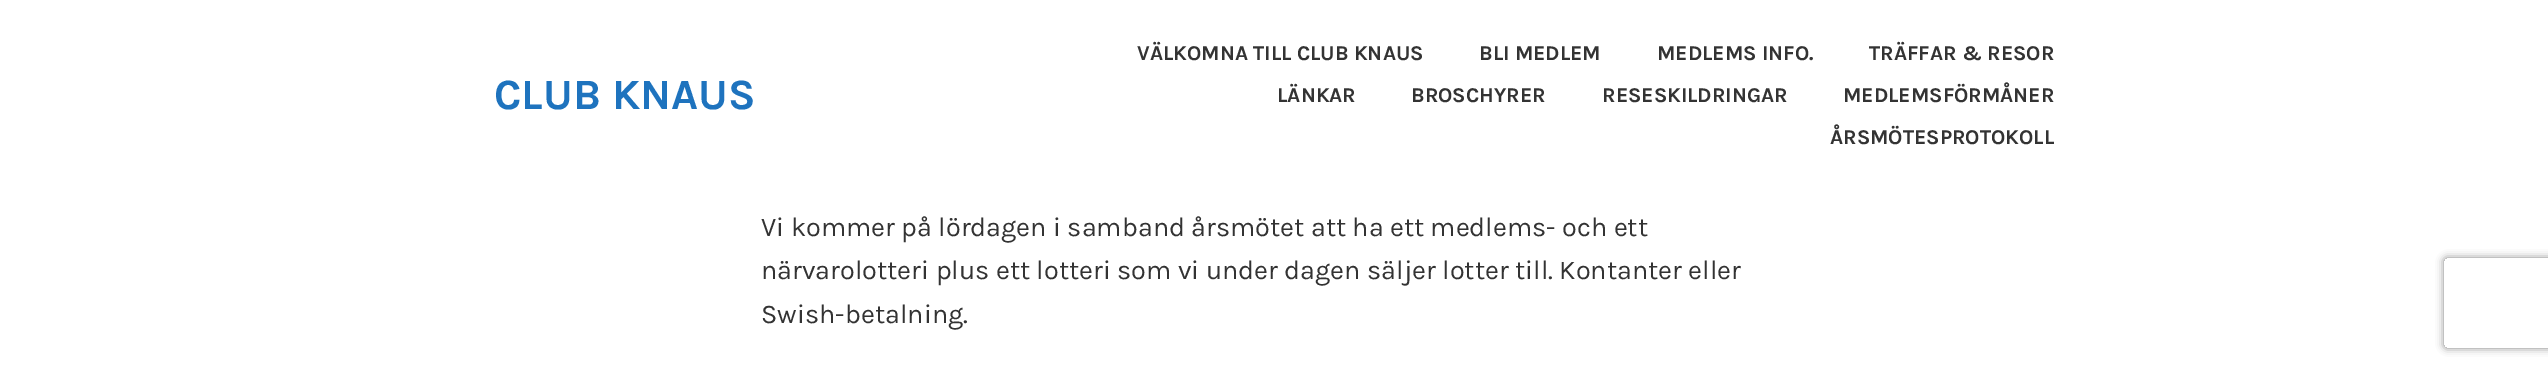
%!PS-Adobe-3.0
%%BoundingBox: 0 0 2548 369
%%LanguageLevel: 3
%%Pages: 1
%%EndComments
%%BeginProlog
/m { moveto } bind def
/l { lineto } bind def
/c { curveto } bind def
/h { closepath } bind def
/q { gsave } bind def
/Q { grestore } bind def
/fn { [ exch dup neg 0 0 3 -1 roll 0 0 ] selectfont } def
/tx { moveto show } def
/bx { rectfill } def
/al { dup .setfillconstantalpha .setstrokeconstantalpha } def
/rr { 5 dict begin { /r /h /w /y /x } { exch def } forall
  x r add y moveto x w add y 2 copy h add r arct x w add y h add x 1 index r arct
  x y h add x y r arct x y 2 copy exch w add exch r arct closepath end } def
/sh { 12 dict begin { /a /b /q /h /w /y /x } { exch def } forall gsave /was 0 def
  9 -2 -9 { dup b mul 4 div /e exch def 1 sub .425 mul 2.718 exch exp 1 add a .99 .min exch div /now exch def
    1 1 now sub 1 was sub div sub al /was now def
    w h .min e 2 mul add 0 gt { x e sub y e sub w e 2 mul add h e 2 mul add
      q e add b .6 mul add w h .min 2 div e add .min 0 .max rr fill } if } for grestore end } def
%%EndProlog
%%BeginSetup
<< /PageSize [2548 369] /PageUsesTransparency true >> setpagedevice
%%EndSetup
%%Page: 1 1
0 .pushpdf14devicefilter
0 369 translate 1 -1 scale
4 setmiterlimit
1 setgray
0 0 2548 369 bx
/Karla-Bold 43.25 fn
0.118 0.451 0.745 setrgbcolor
(CLUB KNAUS) 494 109 tx
/Karla-Bold 21 fn
0.2 setgray
(VÄLKOMNA TILL CLUB KNAUS) 1137 60 tx
(BLI MEDLEM) 1479 60 tx
(MEDLEMS INFO.) 1657 60 tx
(TRÄFFAR & RESOR) 1869 60 tx
(LÄNKAR) 1277 102 tx
(BROSCHYRER) 1411 102 tx
(RESESKILDRINGAR) 1602 102 tx
(MEDLEMSFÖRMÅNER) 1843 102 tx
(ÅRSMÖTESPROTOKOLL) 1830 144 tx
/Karla-Regular 27 fn
(Vi kommer på lördagen i samband årsmötet att ha ett medlems- och ett) 761 236 tx
(närvarolotteri plus ett lotteri som vi under dagen säljer lotter till. Kontanter eller) 761 279 tx
(Swish-betalning.) 761 323 tx
q
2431 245 m 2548 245 l 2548 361 l 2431 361 l h 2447 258 m 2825 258 l 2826.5 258 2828 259.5 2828 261 c 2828 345 l 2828 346.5 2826.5 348 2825 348 c 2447 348 l 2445.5 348 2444 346.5 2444 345 c 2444 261 l 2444 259.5 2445.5 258 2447 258 c h eoclip newpath
0.502 setgray
2444 258 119 90 3 4 1 sh
Q
.poppdf14devicefilter showpage
%%EOF
